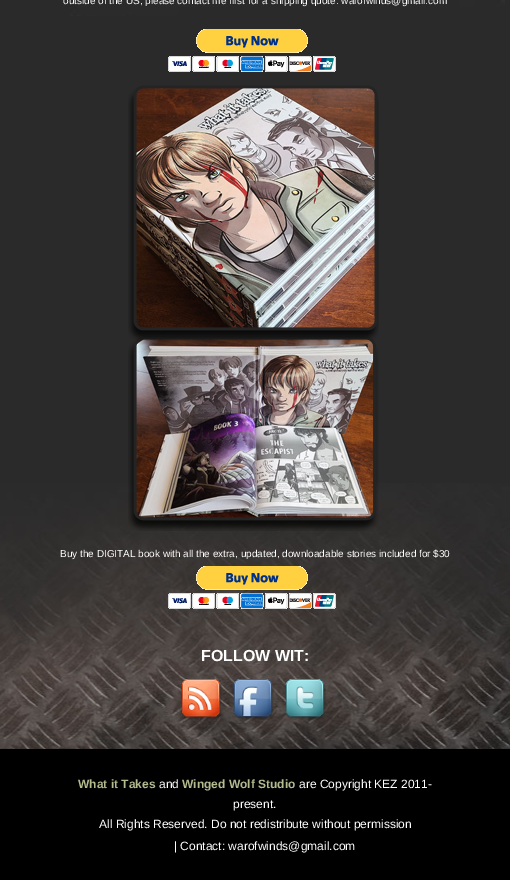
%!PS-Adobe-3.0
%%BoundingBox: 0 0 510 880
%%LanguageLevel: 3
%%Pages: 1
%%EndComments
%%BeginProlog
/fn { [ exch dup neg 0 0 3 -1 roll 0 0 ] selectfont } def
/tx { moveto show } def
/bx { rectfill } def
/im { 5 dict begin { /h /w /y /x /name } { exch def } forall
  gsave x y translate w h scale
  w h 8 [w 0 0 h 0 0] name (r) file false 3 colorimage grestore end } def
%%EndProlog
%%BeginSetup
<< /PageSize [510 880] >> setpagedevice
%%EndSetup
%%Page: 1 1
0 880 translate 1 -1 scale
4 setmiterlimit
0.165 setgray
0 0 510 880 bx
(image0.raw) 0 483 510 266 im
(image1.raw) 70 0 435 16 im
/LiberationSans-Regular 10 fn
1 setgray
(outside of the US, please contact me first for a shipping quote: warofwinds@gmail.com) 63 4 tx
(image2.raw) 168 29 168 43 im
(image3.raw) 128 85 251 446 im
(Buy the DIGITAL book with all the extra, updated, downloadable stories included for $30) 60 557 tx
(image4.raw) 168 566 168 43 im
/LiberationSans-Bold 16 fn
(FOLLOW WIT:) 201 661 tx
(image5.raw) 181 679 41 41 im
(image6.raw) 233 679 41 41 im
(image7.raw) 285 679 41 41 im
0 setgray
0 749 510 131 bx
/LiberationSans-Bold 12 fn
0.71 0.733 0.561 setrgbcolor
(What it Takes) 78 788 tx
/LiberationSans-Regular 12 fn
1 setgray
(and) 159 788 tx
/LiberationSans-Bold 12 fn
0.71 0.733 0.561 setrgbcolor
(Winged Wolf Studio) 182 788 tx
/LiberationSans-Regular 12 fn
1 setgray
(are Copyright KEZ 2011-) 299 788 tx
(present.) 233 808 tx
(All Rights Reserved. Do not redistribute without permission) 99 828 tx
(| Contact: warofwinds@gmail.com) 174 850 tx
showpage
%%EOF
